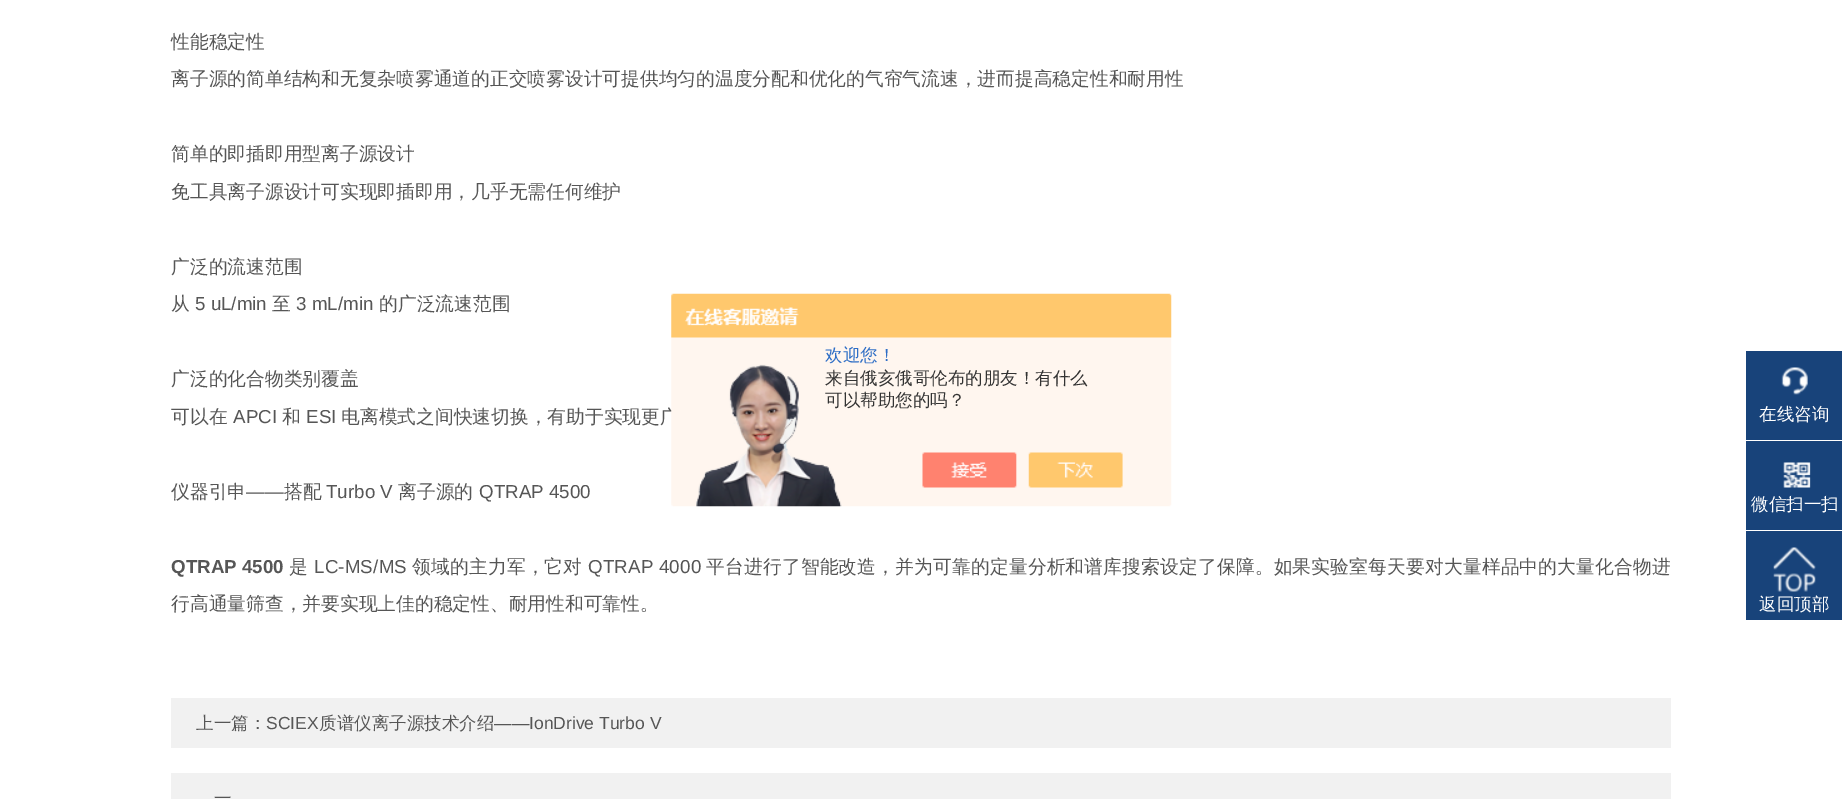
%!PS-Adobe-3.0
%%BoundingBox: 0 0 1842 799
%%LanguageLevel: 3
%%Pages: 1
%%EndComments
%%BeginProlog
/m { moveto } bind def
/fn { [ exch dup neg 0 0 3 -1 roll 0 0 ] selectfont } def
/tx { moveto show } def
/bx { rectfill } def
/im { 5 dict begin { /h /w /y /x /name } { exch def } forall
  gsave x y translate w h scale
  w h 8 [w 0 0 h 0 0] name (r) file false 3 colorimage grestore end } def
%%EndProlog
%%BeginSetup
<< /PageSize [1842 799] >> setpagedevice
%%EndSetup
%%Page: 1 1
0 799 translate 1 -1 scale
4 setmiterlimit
1 setgray
0 0 1842 799 bx
/WenQuanYiZenHei-Medium 18.75 fn
0.337 setgray
(性能稳定性) 171 48 tx
(离子源的简单结构和无复杂喷雾通道的正交喷雾设计可提供均匀的温度分配和优化的气帘气流速，进而提高稳定性和耐用性) 171 85 tx
(简单的即插即用型离子源设计) 171 160 tx
(免工具离子源设计可实现即插即用，几乎无需任何维护) 171 198 tx
(广泛的流速范围) 171 273 tx
(从) 171 310 tx
/LiberationSans-Regular 18.75 fn
(5 uL/min) 195 310 tx
/WenQuanYiZenHei-Medium 18.75 fn
(至) 272 310 tx
/LiberationSans-Regular 18.75 fn
(3 mL/min) 296 310 tx
/WenQuanYiZenHei-Medium 18.75 fn
(的广泛流速范围) 379 310 tx
(广泛的化合物类别覆盖) 171 385 tx
(可以在) 171 423 tx
/LiberationSans-Regular 18.75 fn
(APCI) 233 423 tx
/WenQuanYiZenHei-Medium 18.75 fn
(和) 282 423 tx
/LiberationSans-Regular 18.75 fn
(ESI) 306 423 tx
/WenQuanYiZenHei-Medium 18.75 fn
(电离模式之间快速切换，有助于实现更广) 341 423 tx
(仪器引申) 171 498 tx
/LiberationSans-Regular 18.75 fn
(——) 246 498 tx
/WenQuanYiZenHei-Medium 18.75 fn
(搭配) 284 498 tx
/LiberationSans-Regular 18.75 fn
(Turbo V) 326 498 tx
/WenQuanYiZenHei-Medium 18.75 fn
(离子源的) 398 498 tx
/LiberationSans-Regular 18.75 fn
(QTRAP 4500) 479 498 tx
/LiberationSans-Bold 18.75 fn
(QTRAP 4500) 171 573 tx
/WenQuanYiZenHei-Medium 18.75 fn
289 573 m 0.17 0 (是) ashow
/LiberationSans-Regular 18.75 fn
314 573 m 0.17 0 (LC-MS/MS) ashow
/WenQuanYiZenHei-Medium 18.75 fn
412 573 m 0.17 0 (领域的主力军，它对) ashow
/LiberationSans-Regular 18.75 fn
588 573 m 0.17 0 (QTRAP 4000) ashow
/WenQuanYiZenHei-Medium 18.75 fn
706 573 m 0.17 0 (平台进行了智能改造，并为可靠的定量分析和谱库搜索设定了保障。如果实验室每天要对大量样品中的大量化合物进) ashow
(行高通量筛查，并要实现上佳的稳定性、耐用性和可靠性。) 171 610 tx
0.945 setgray
171 698 1500 50 bx
/WenQuanYiZenHei-Medium 17.5 fn
0.337 setgray
(上一篇：) 196 729 tx
/LiberationSans-Regular 17.5 fn
(SCIEX) 266 729 tx
/WenQuanYiZenHei-Medium 17.5 fn
(质谱仪离子源技术介绍) 319 729 tx
/LiberationSans-Regular 17.5 fn
(——IonDrive Turbo V) 494 729 tx
0.945 setgray
171 773 1500 26 bx
/WenQuanYiZenHei-Medium 17.5 fn
0.337 setgray
(一) 214 804 tx
(image0.raw) 671 293 501 214 im
0.18 0.431 0.776 setrgbcolor
(欢迎您！) 825 361 tx
0.2 setgray
(来自俄亥俄哥伦布的朋友！有什么) 825 384 tx
(可以帮助您的吗？) 825 406 tx
0.094 0.263 0.478 setrgbcolor
1746 351 96 89 bx
(image1.raw) 1781 367 27 28 im
1 setgray
(在线咨询) 1759 420 tx
0.094 0.263 0.478 setrgbcolor
1746 441 96 89 bx
(image2.raw) 1783 462 28 26 im
1 setgray
(微信扫一扫) 1751 510 tx
0.094 0.263 0.478 setrgbcolor
1746 531 96 89 bx
(image3.raw) 1773 547 43 45 im
1 setgray
(返回顶部) 1759 610 tx
showpage
%%EOF
